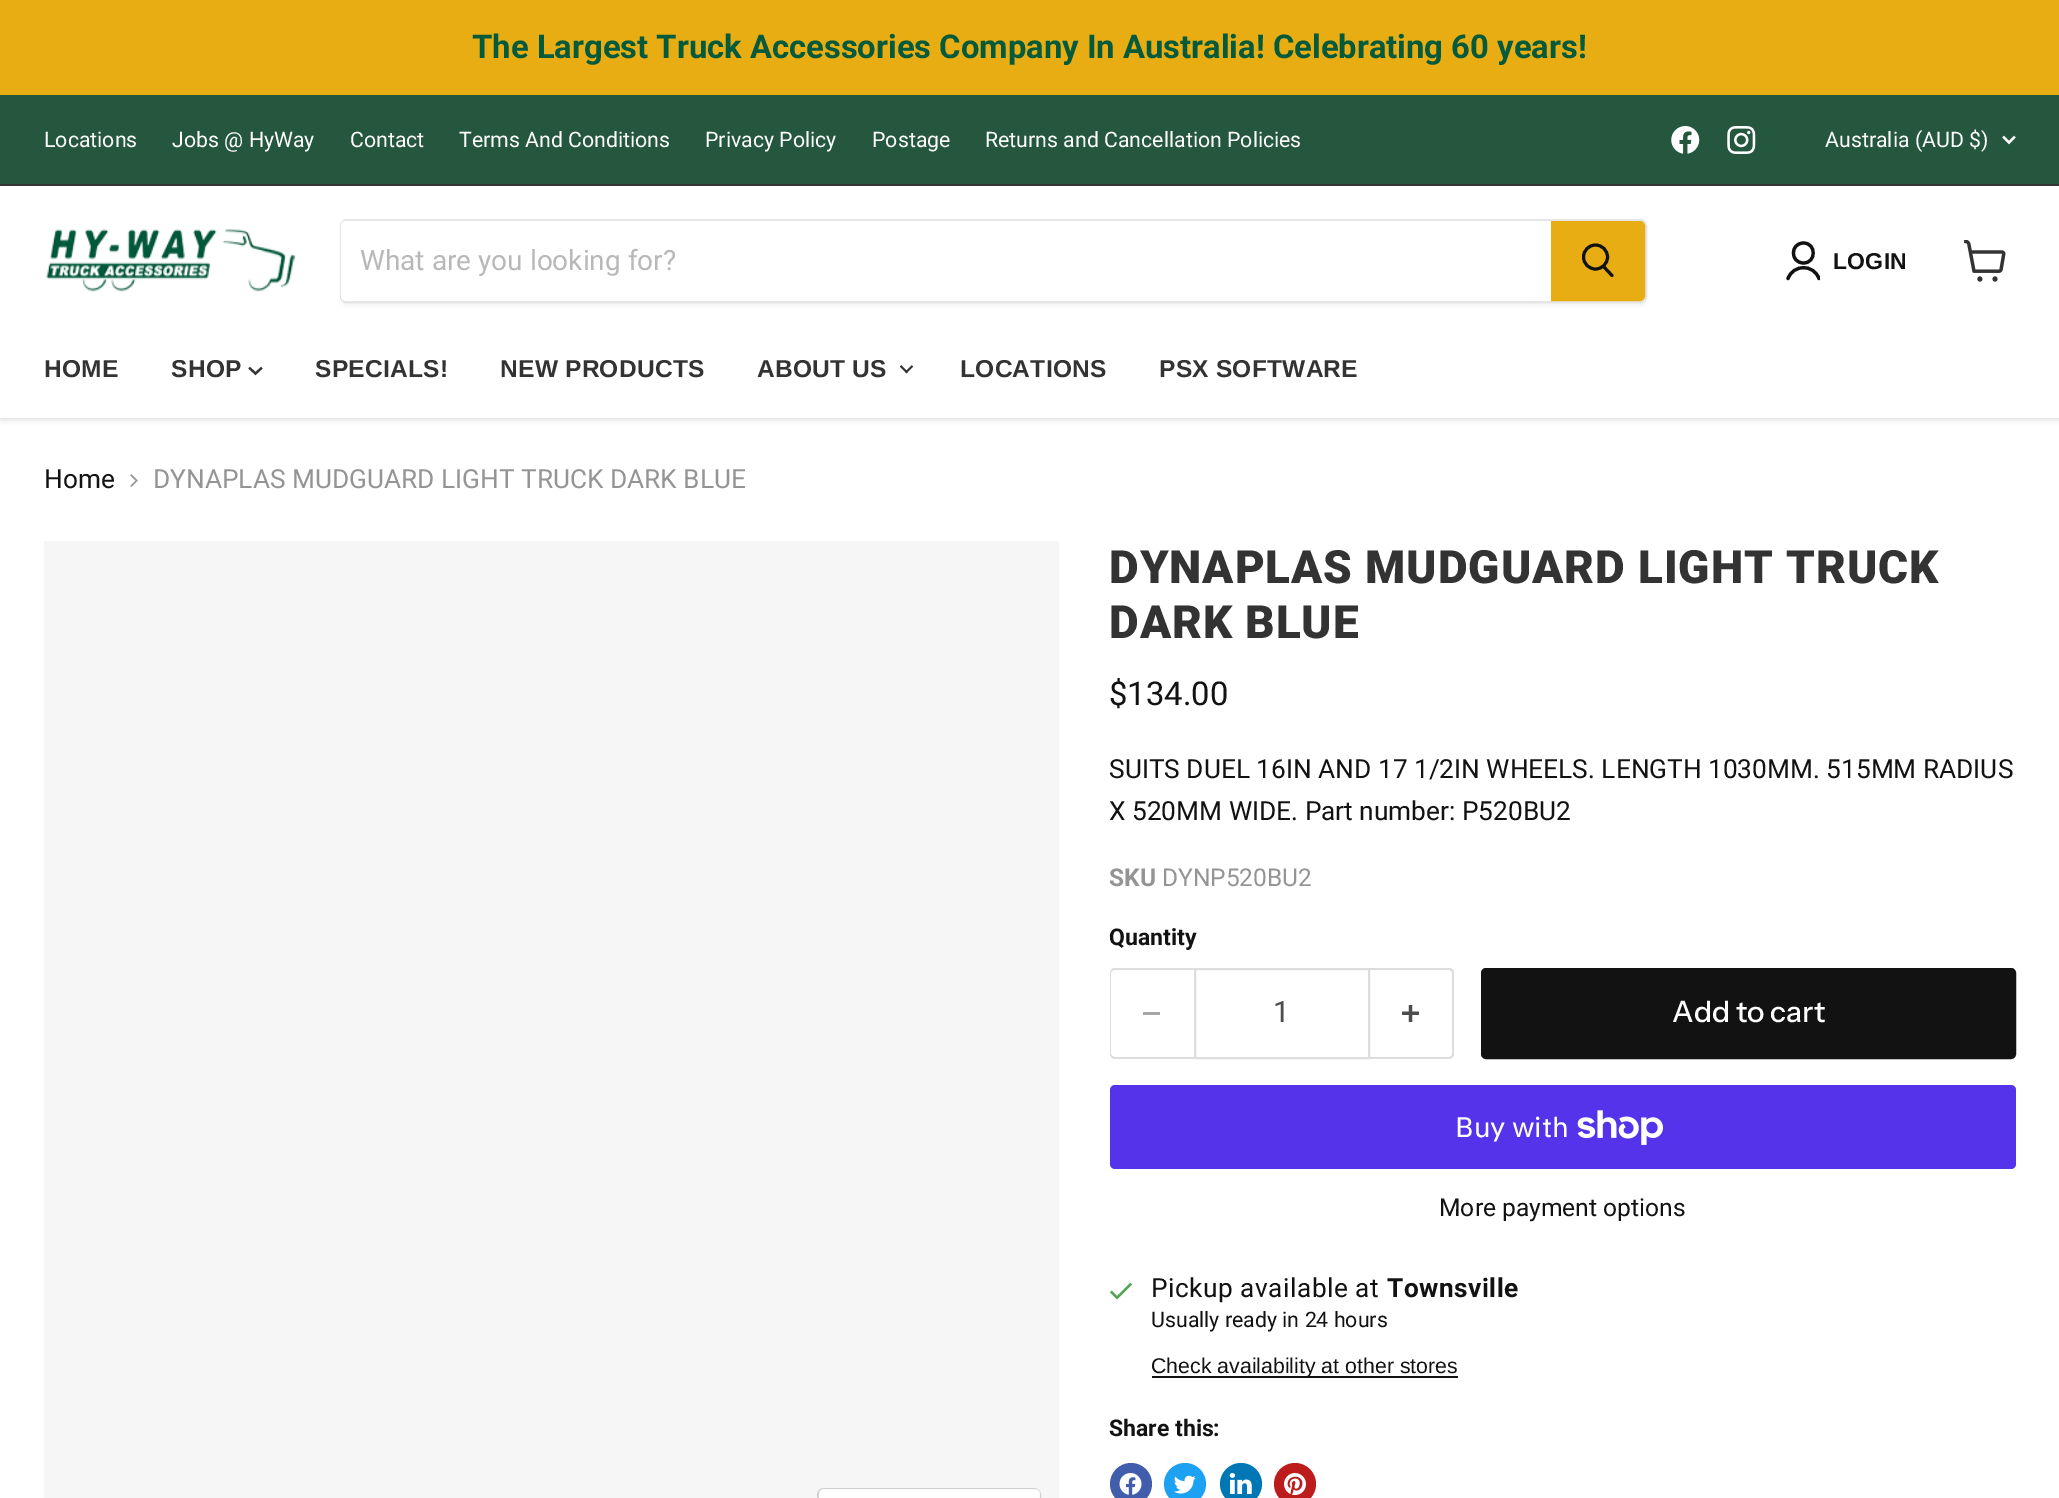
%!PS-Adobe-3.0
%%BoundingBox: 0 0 2059 1498
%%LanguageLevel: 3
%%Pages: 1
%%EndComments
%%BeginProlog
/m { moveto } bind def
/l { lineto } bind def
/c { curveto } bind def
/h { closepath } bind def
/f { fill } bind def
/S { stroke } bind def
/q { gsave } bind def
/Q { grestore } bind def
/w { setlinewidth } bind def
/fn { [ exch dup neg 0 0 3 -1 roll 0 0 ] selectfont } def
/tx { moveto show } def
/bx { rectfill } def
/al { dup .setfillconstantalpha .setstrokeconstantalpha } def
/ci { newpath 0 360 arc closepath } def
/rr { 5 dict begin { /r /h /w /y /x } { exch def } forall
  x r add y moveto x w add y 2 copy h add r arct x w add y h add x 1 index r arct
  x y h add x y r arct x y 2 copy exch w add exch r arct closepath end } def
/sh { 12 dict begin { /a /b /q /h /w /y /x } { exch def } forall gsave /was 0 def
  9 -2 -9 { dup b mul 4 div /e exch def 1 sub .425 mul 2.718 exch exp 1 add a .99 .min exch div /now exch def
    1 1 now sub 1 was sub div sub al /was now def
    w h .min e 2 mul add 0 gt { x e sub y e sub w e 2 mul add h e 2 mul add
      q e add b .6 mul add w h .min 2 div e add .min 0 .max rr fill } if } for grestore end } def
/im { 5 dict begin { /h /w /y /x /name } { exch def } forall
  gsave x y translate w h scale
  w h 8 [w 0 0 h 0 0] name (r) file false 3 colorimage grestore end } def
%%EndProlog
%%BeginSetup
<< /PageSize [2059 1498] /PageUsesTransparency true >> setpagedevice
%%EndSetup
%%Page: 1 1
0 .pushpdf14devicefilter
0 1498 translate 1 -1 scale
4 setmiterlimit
1 setgray
0 0 2059 1498 bx
0.914 0.678 0.078 setrgbcolor
0 0 2059 95 bx
/Roboto-Bold 32.8 fn
0.016 0.353 0.231 setrgbcolor
(The Largest Truck Accessories Company In Australia! Celebrating 60 years!) 472 58 tx
q
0 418 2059 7 rectclip
0.502 setgray
0 187 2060 233 0 3.5 0.25 sh
Q
0.141 0.341 0.243 setrgbcolor
0 95 2059 89 bx
0.208 setgray
0 184 2059 2 bx
/Roboto-Regular 21.3 fn
1 setgray
(Locations) 44 147 tx
(Jobs @ HyWay) 172 147 tx
(Contact) 350 147 tx
(Terms And Conditions) 459 147 tx
(Privacy Policy) 705 147 tx
(Postage) 872 147 tx
(Returns and Cancellation Policies) 985 147 tx
(image0.raw) 1671 126 29 28 im
(image1.raw) 1727 126 29 28 im
(Australia \(AUD $\)) 1825 147 tx
2.2 w
2 setlinecap
2009 142.5 m 2014 137.5 l 2009 142.5 m 2004 137.5 l S
(image2.raw) 46 229 250 63 im
q
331 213 m 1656 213 l 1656 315 l 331 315 l h 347 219 m 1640 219 l 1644 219 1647 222 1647 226 c 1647 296 l 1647 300 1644 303 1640 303 c 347 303 l 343 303 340 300 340 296 c 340 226 l 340 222 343 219 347 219 c h eoclip newpath
0.502 setgray
340 222 1307 84 7 2.5 0.11 sh
Q
0.2 al
0.502 setgray
2 w
0 setlinecap
341 220 1305 82 6 rr S
1 al
1 setgray
346 221 m 1551 221 l 1551 301 l 346 301 l 343 301 341 299 341 296 c 341 226 l 341 223 343 221 346 221 c h f
/Roboto-Regular 28 fn
0.722 setgray
(What are you looking for?) 360 270 tx
0.914 0.678 0.078 setrgbcolor
1552 222 m 1640 222 l 1642 222 1644 224 1644 226 c 1644 296 l 1644 298 1642 300 1640 300 c 1552 300 l h q f Q
S
0.071 setgray
3 w
1 setlinecap
1612 275.5 m 1604 267 l S
0 setlinecap
1595.5 257 12 ci S
3.2 w
1 setlinecap
1 setlinejoin
1803.5 263 m 1816.5 263 1816.5 243 1803.5 243 c 1790 243 1790 263 1803.5 263 c h S
q
1785 240 35 42 rectclip
1819 278.5 m 1813.5 264 1793.5 264 1788 278.5 c S
Q
/LiberationSans-Bold 23 fn
1833 269 m 0.25 0 (LOGIN) ashow
(image3.raw) 1964 240 42 42 im
/LiberationSans-Bold 24.5 fn
0.2 setgray
44 377 m 0.25 0 (HOME) ashow
171 377 m 0.25 0 (SHOP) ashow
2.2 w
2 setlinecap
0 setlinejoin
255.5 373.5 m 261 368.5 l 255.5 373.5 m 250 368.5 l S
315 377 m 0.25 0 (SPECIALS!) ashow
500 377 m 0.25 0 (NEW PRODUCTS) ashow
757 377 m 0.25 0 (ABOUT US) ashow
(image4.raw) 900 365 14 9 im
960 377 m 0.25 0 (LOCATIONS) ashow
1159 377 m 0.25 0 (PSX SOFTWARE) ashow
/Roboto-Regular 26.25 fn
0.071 setgray
(Home) 44 488 tx
(image5.raw) 130 474 8 13 im
0.58 setgray
(DYNAPLAS MUDGUARD LIGHT TRUCK DARK BLUE) 153 488 tx
0.965 setgray
44 541 1015 957 bx
0.82 setgray
2 w
0 setlinecap
818 1489 222 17 6 rr S
0.9 al
1 setgray
819 1489 221 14 5 rr f
/Roboto-Black 45.9 fn
1 al
0.2 setgray
1109 583 m 0.9 0 (DYNAPLAS MUDGUARD LIGHT TRUCK) ashow
1109 638 m 0.9 0 (DARK BLUE) ashow
/Roboto-Regular 32.8 fn
0.071 setgray
($134.00) 1109 705 tx
/Roboto-Regular 26.25 fn
(SUITS DUEL 16IN AND 17 1/2IN WHEELS. LENGTH 1030MM. 515MM RADIUS) 1109 778 tx
(X 520MM WIDE. Part number: P520BU2) 1109 820 tx
/Roboto-Bold 24.5 fn
0.58 setgray
(SKU) 1109 886 tx
/Roboto-Regular 24.5 fn
(DYNP520BU2) 1162 886 tx
/Roboto-Bold 23 fn
0.071 setgray
(Quantity) 1109 945 tx
0.867 setgray
1115 968 m 1194 968 l 1194 1059 l 1115 1059 l 1112 1059 1110 1056 1110 1054 c 1110 973 l 1110 970 1112 968 1115 968 c h 1115 970 m 1194 970 l 1194 1057 l 1115 1057 l 1113 1057 1111 1055 1111 1054 c 1111 973 l 1111 971 1113 970 1115 970 c h eofill
0.651 setgray
1143 1012 17 3 bx
0.867 setgray
1195 969 174 89 rectstroke
/Roboto-Regular 29.5 fn
0.302 setgray
(1) 1273 1022 tx
0.867 setgray
1370 968 m 1449 968 l 1452 968 1454 970 1454 973 c 1454 1054 l 1454 1056 1452 1059 1449 1059 c 1370 1059 l h 1370 970 m 1449 970 l 1451 970 1452 971 1452 973 c 1452 1054 l 1452 1055 1451 1057 1449 1057 c 1370 1057 l h eofill
(image6.raw) 1402 1005 17 17 im
0.071 setgray
1482 969 533 89 4 rr q f Q
S
/InstrumentSans-Medium 29.5 fn
1 setgray
(Add to cart) 1672 1022 tx
0.329 0.2 0.922 setrgbcolor
1110 1085 906 84 5 rr f
/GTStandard-Regular 28 fn
1 setgray
(Buy with) 1455 1137 tx
(image7.raw) 1577 1110 86 35 im
/Roboto-Regular 24.6 fn
0.071 setgray
(More payment options) 1439 1216 tx
(image8.raw) 1110 1282 22 18 im
/Roboto-Regular 26.25 fn
1151 1297 m 0.5 0 (Pickup available at) ashow
/Roboto-Bold 26.25 fn
1387 1297 m 0.5 0 (Townsville) ashow
/Roboto-Regular 21.3 fn
(Usually ready in 24 hours) 1151 1327 tx
1152 1376 306 2 bx
/LiberationSans-Regular 21.3 fn
(Check availability at other stores) 1151 1373 tx
/Roboto-Bold 23 fn
(Share this:) 1109 1436 tx
0.259 0.365 0.671 setrgbcolor
1131 1484 21 ci f
(image9.raw) 1119 1473 23 22 im
0.114 0.631 0.949 setrgbcolor
1185 1484 21 ci f
(image10.raw) 1174 1475 22 19 im
0 0.467 0.71 setrgbcolor
1241 1484 21 ci f
(image11.raw) 1229 1473 23 21 im
0.741 0.11 0.11 setrgbcolor
1295 1484 21 ci f
(image12.raw) 1284 1473 22 23 im
.poppdf14devicefilter showpage
%%EOF
